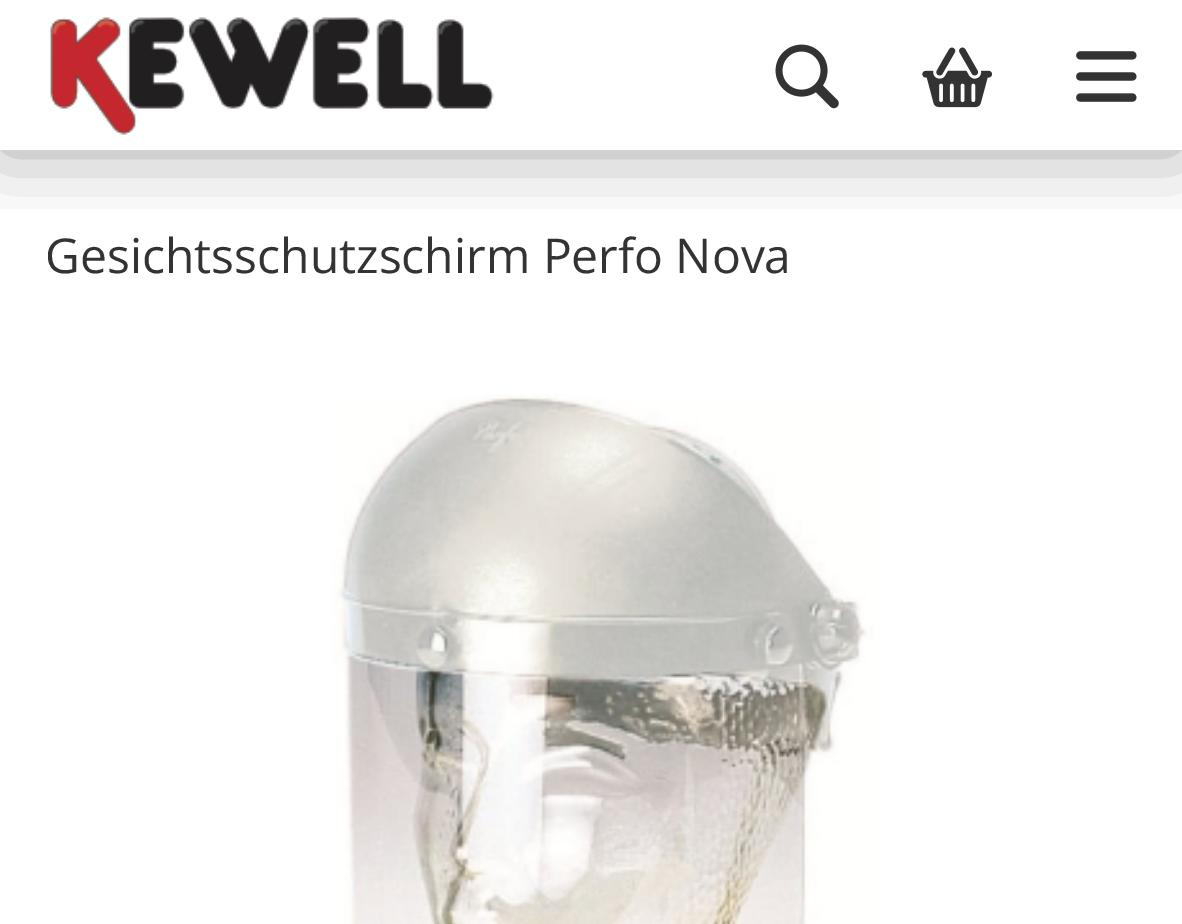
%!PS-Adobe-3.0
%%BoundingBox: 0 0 1182 924
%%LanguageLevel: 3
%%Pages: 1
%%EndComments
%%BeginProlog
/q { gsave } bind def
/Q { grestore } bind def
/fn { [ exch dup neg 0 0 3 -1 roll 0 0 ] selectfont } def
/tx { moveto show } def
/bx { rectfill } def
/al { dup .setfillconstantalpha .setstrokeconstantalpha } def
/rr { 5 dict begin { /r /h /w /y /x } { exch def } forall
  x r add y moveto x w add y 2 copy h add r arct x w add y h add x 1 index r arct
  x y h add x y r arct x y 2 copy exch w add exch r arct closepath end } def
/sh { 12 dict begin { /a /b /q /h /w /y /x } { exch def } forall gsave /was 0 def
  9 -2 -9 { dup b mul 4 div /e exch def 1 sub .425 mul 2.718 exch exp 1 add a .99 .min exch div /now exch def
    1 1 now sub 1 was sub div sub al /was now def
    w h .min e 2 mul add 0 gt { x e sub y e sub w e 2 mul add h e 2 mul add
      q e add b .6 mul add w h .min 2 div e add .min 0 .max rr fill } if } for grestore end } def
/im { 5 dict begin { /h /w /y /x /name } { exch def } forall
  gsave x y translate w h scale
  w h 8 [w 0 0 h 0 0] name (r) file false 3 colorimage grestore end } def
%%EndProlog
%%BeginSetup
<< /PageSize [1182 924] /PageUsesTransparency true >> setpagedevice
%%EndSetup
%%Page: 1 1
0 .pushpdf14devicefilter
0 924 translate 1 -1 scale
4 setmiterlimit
1 setgray
0 0 1182 924 bx
q
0 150 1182 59 rectclip
0 setgray
0 0 1182 150 0 37.5 0.35 sh
Q
(image0.raw) 50 17 444 118 im
(image1.raw) 775 44 64 65 im
(image2.raw) 922 47 70 61 im
(image3.raw) 1076 51 61 51 im
/OpenSans-Regular 48 fn
0.2 setgray
(Gesichtsschutzschirm Perfo Nova) 45 273 tx
(image4.raw) 332 394 542 530 im
.poppdf14devicefilter showpage
%%EOF
